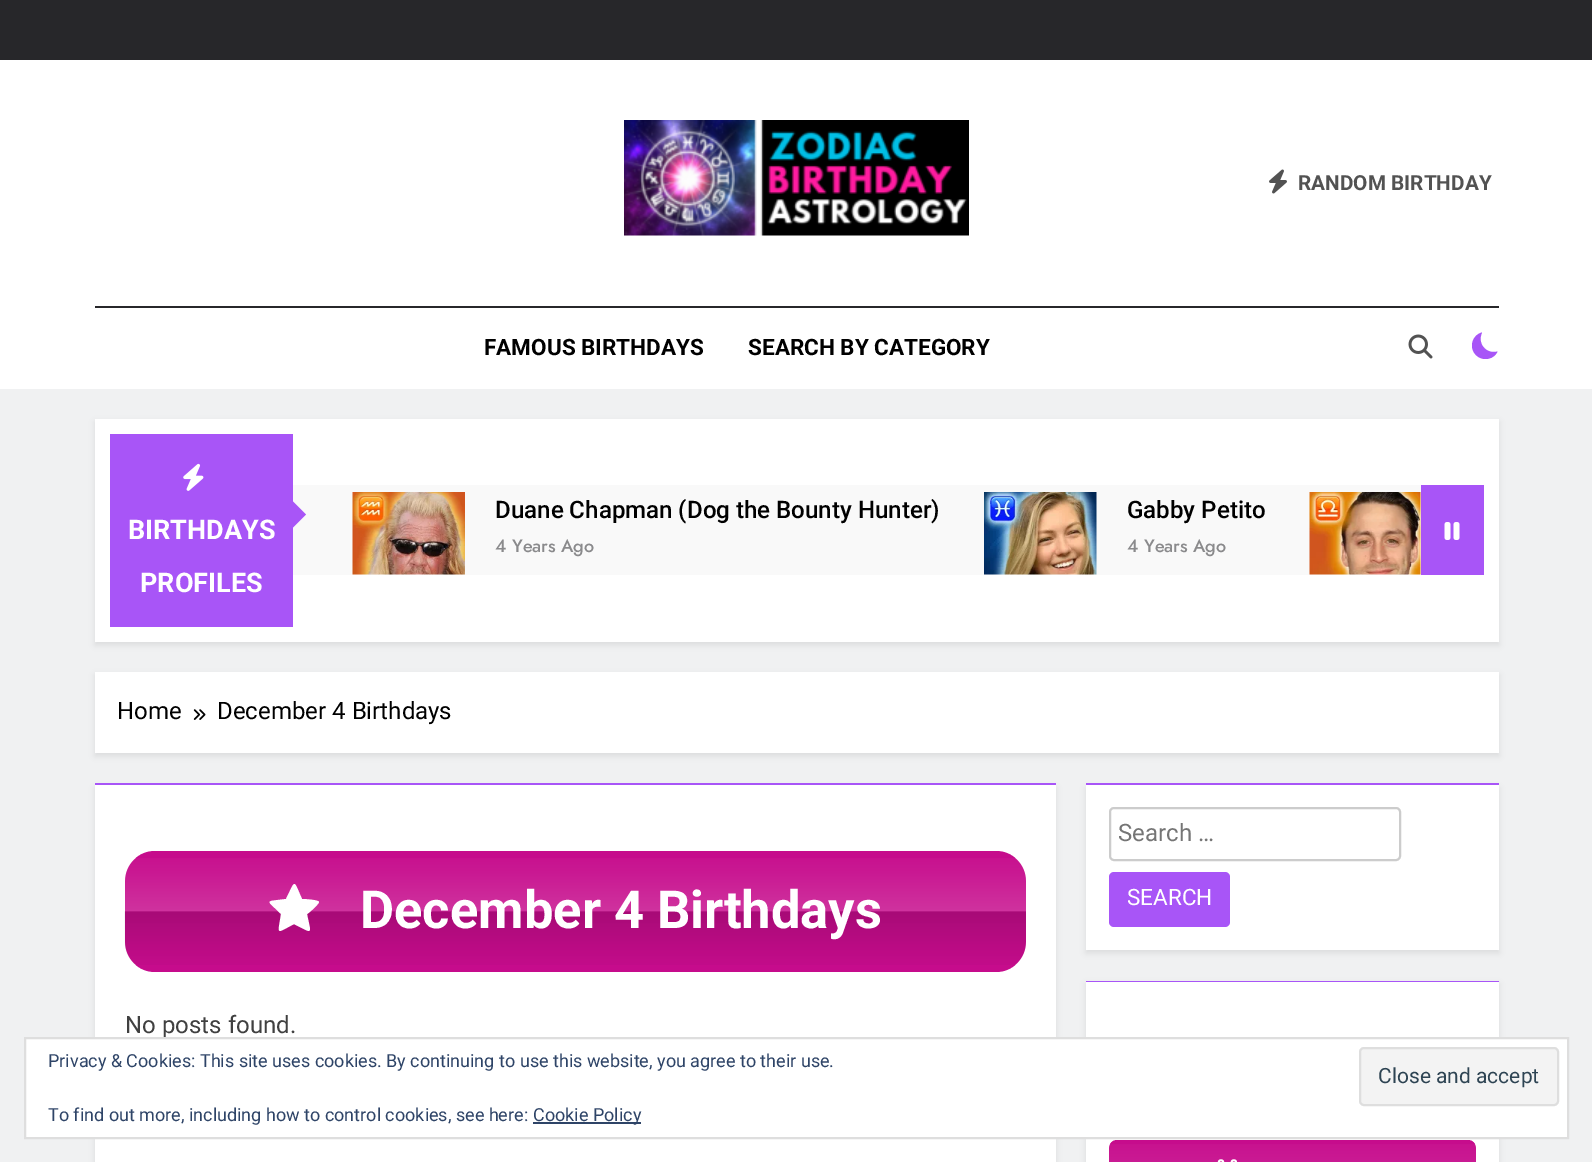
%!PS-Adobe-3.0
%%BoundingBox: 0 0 1592 1162
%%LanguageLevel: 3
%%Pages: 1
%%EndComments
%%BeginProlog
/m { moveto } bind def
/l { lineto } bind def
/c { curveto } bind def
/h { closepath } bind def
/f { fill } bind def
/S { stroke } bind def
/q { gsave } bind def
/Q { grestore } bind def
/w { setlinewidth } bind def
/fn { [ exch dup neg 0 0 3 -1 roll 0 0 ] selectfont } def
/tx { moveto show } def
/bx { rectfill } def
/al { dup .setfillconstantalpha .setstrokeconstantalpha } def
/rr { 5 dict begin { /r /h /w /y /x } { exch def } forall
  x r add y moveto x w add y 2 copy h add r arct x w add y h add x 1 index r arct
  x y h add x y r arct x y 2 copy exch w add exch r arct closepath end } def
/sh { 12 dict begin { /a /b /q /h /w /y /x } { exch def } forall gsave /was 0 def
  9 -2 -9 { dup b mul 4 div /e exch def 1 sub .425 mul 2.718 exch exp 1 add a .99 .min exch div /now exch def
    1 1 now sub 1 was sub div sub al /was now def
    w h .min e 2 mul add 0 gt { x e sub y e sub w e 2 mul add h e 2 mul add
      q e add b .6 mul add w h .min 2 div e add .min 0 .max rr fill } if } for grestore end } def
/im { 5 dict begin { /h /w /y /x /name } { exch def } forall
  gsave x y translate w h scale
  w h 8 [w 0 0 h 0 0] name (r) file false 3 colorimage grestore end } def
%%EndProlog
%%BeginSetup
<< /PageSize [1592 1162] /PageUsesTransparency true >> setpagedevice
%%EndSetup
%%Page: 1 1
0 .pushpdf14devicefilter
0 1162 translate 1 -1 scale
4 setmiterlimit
0.941 0.945 0.949 setrgbcolor
0 0 1592 1162 bx
0.153 0.153 0.165 setrgbcolor
0 0 1592 60 bx
1 setgray
0 60 1592 329 bx
(image0.raw) 624 120 345 116 im
(image1.raw) 1269 169 18 25 im
/Roboto-Bold 20.75 fn
0.322 setgray
(RANDOM BIRTHDAY) 1298 190 tx
0.153 0.153 0.165 setrgbcolor
95 306 1404 2 bx
/Roboto-Bold 22.5 fn
0 setgray
(FAMOUS BIRTHDAYS) 484 355 tx
(SEARCH BY CATEGORY) 748 355 tx
(image2.raw) 1408 334 25 25 im
0.659 0.333 0.969 setrgbcolor
1497.5 351.5 m 1486 354.5 1477 343.5 1482 332.5 c 1476 334 1472 339.5 1472 345.5 c 1472 353 1478 359 1485.5 359 c 1491 359 1495.5 356 1497.5 351.5 c h f
0 setgray
95 422 1404 223 0 3 0.08 sh
1 setgray
95 419 1404 223 bx
0.659 0.333 0.969 setrgbcolor
110 434 183 193 bx
(image3.raw) 183 463 21 28 im
/Roboto-Bold 27 fn
1 setgray
(BIRTHDAYS) 128 539 tx
0.976 setgray
293 485 1128 90 bx
0.659 0.333 0.969 setrgbcolor
291 529.5 m 291 499.5 l 306 514.5 l h f
1 setgray
(PROFILES) 140 592 tx
(image4.raw) 352 492 113 83 im
/Roboto-Medium 24.1 fn
0 setgray
(Duane Chapman \(Dog the Bounty Hunter\)) 495 518 tx
/Jost-Medium 18 fn
0.541 0.541 0.549 setrgbcolor
(4 Years Ago) 495 552 tx
(image5.raw) 984 492 113 83 im
/Roboto-Medium 24.1 fn
0 setgray
(Gabby Petito) 1127 518 tx
/Jost-Medium 18 fn
0.541 0.541 0.549 setrgbcolor
(4 Years Ago) 1127 552 tx
(image6.raw) 1309 492 112 83 im
0.659 0.333 0.969 setrgbcolor
1421 485 63 90 bx
(image7.raw) 1444 522 16 18 im
0 setgray
95 675 1404 81 0 3 0.08 sh
1 setgray
95 672 1404 81 bx
/Roboto-Regular 24 fn
0 setgray
(Home) 117 719 tx
(image8.raw) 193 709 13 11 im
(December 4 Birthdays) 217 719 tx
1086 788 413 165 0 3 0.08 sh
1 setgray
1086 785 413 165 bx
0.659 0.333 0.969 setrgbcolor
1086 783 413 2 bx
0.8 setgray
2 w
1110 808 290 52 4 rr S
0.459 setgray
(Search …) 1118 841 tx
0.659 0.333 0.969 setrgbcolor
1109 872 121 55 5 rr f
/Roboto-Regular 22.5 fn
1 setgray
(SEARCH) 1127 905 tx
0 setgray
1086 984 413 81 0 3 0.08 sh
1 setgray
1086 982 413 55 bx
0.659 0.333 0.969 setrgbcolor
1086 981 413 1 bx
0 setgray
1086 1097 413 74 0 3 0.08 sh
1 setgray
1086 1139 413 23 bx
0.776 0.047 0.549 setrgbcolor
1109 1140 367 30 8 rr f
(image9.raw) 1109 1144 367 18 im
(image10.raw) 1217 1159 20 3 im
0 setgray
95 788 961 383 0 3 0.08 sh
1 setgray
95 785 961 377 bx
0.659 0.333 0.969 setrgbcolor
95 783 961 2 bx
0.776 0.047 0.549 setrgbcolor
125 851 901 121 30 rr f
(image11.raw) 124 858 902 107 im
1 setgray
319 902 m 319 904 309 913 307 914 c 311 935 314 934 294 924 c 275 934 278 935 281 914 c 266 899 264 902 286 899 c 296 879 293 879 302 899 c 305 899 319 900 319 902 c h f
/Roboto-Bold 52.5 fn
(December 4 Birthdays) 360 928 tx
/Roboto-Regular 24 fn
0.251 setgray
(No posts found.) 125 1033 tx
1 setgray
25 1038 m 1568 1038 l 1568 1138 l 25 1138 l h q f Q
0.871 setgray
S
/Roboto-Regular 18 fn
0.18 0.267 0.404 setrgbcolor
(Privacy & Cookies: This site uses cookies. By continuing to use this website, you agree to their use.) 48 1067 tx
0.953 setgray
1360 1048 198 57 4 rr q f Q
0.871 setgray
S
/Roboto-Regular 21 fn
0.18 0.267 0.325 setrgbcolor
(Close and accept) 1378 1083 tx
/Roboto-Regular 18 fn
0.18 0.267 0.404 setrgbcolor
(To find out more, including how to control cookies, see here:) 48 1121 tx
533 1122 108 2 bx
(Cookie Policy) 533 1121 tx
.poppdf14devicefilter showpage
%%EOF
